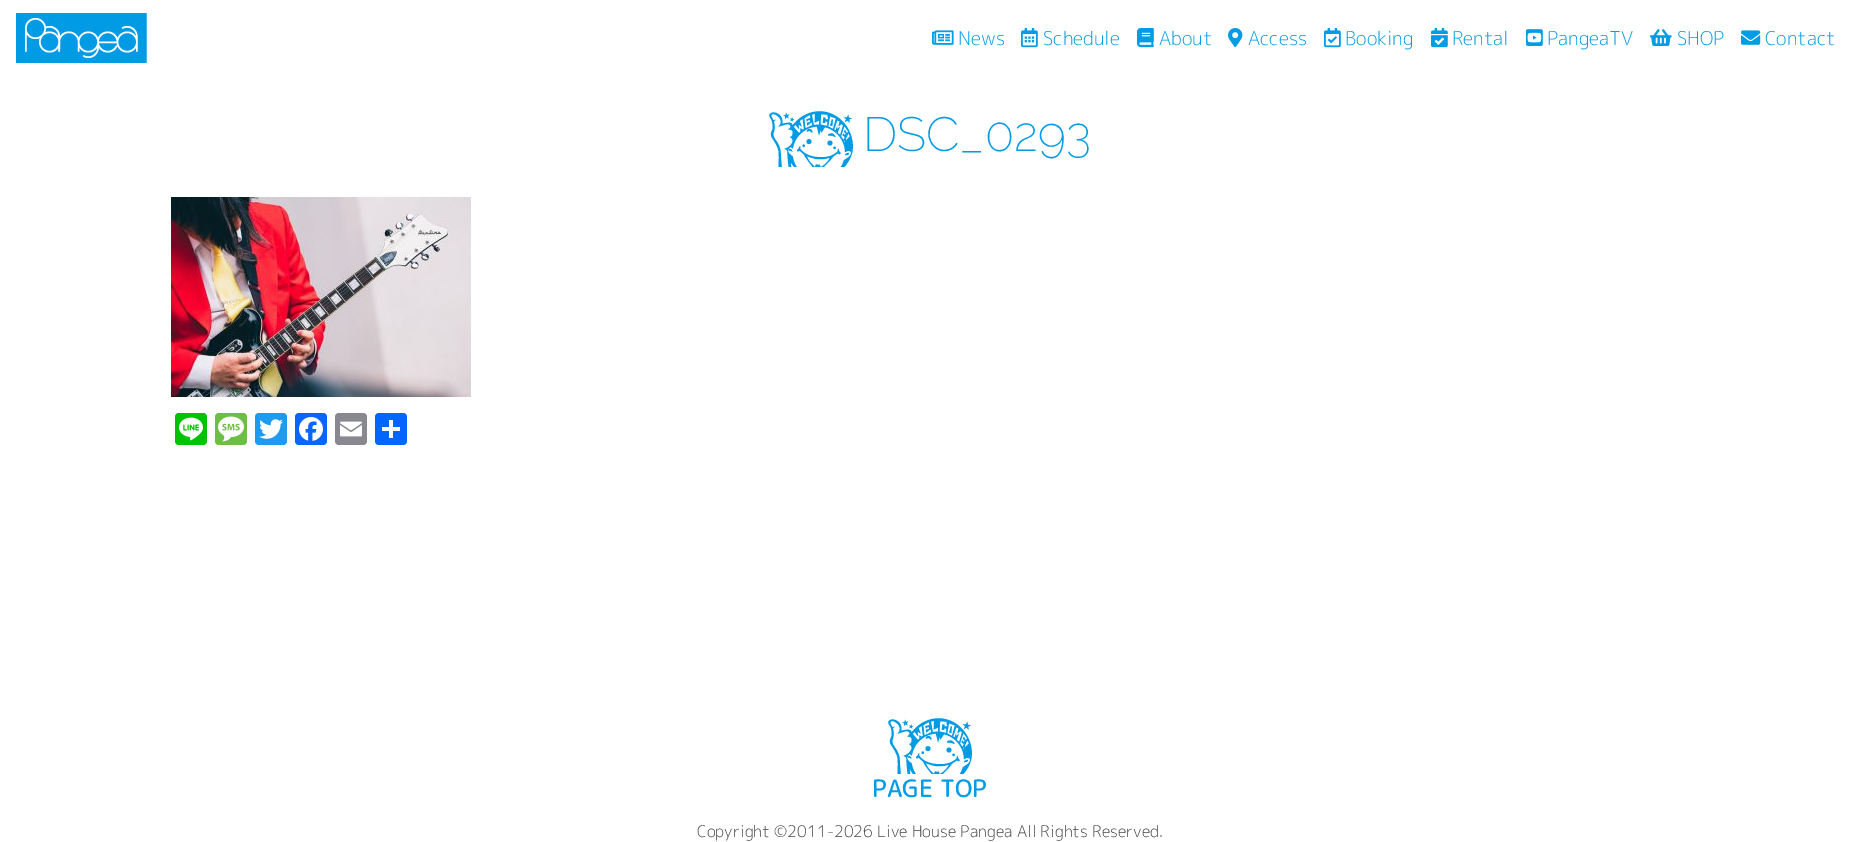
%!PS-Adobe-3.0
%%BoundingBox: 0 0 1860 842
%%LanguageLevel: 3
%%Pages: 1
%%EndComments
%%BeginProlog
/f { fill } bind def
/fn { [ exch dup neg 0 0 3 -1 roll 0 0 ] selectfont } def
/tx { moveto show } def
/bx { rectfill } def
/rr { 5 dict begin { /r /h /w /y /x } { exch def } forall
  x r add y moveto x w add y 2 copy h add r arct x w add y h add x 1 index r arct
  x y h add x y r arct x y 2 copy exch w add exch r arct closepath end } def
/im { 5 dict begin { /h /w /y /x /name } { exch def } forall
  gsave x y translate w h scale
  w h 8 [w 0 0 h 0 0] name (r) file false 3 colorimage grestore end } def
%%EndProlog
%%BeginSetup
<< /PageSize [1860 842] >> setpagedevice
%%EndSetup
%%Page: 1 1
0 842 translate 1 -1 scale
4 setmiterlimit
1 setgray
0 0 1860 842 bx
(image0.raw) 16 13 131 50 im
(image1.raw) 932 30 22 15 im
/RoundedMplus1c-Light 19 fn
0 0.612 0.898 setrgbcolor
(News) 958 45 tx
(image2.raw) 1021 28 17 20 im
(Schedule) 1043 45 tx
(image3.raw) 1137 28 17 20 im
(About) 1159 45 tx
(image4.raw) 1228 28 15 20 im
(Access) 1248 45 tx
(image5.raw) 1324 28 17 20 im
(Booking) 1345 45 tx
(image6.raw) 1431 28 17 20 im
(Rental) 1452 45 tx
(image7.raw) 1526 29 17 17 im
(PangeaTV) 1547 45 tx
(image8.raw) 1650 29 22 17 im
(SHOP) 1677 45 tx
(image9.raw) 1741 30 20 15 im
(Contact) 1765 45 tx
(image10.raw) 769 111 84 56 im
/Raleway-ExtraLight 48 fn
(DSC_0293) 863 151 tx
(image11.raw) 171 197 300 200 im
0 0.765 0 setrgbcolor
175 413 32 32 4 rr f
(image12.raw) 179 417 24 24 im
0.424 0.745 0.271 setrgbcolor
215 413 32 32 4 rr f
(image13.raw) 218 416 26 26 im
0.114 0.608 0.941 setrgbcolor
255 413 32 32 4 rr f
(image14.raw) 259 419 24 20 im
0.031 0.4 1 setrgbcolor
295 413 32 32 4 rr f
(image15.raw) 299 417 24 24 im
0.533 0.537 0.565 setrgbcolor
335 413 32 32 4 rr f
(image16.raw) 340 421 22 16 im
0.004 0.4 1 setrgbcolor
375 413 32 32 4 rr f
1 setgray
389 420 4 18 bx
382 427 18 4 bx
(image10.raw) 888 718 84 56 im
/RoundedMplus1c-Medium 24 fn
0 0.612 0.898 setrgbcolor
(PAGE TOP) 872 797 tx
/RoundedMplus1c-Light 16 fn
0.263 setgray
(Copyright ©2011-2026 Live House Pangea All Rights Reserved.) 697 837 tx
showpage
%%EOF
